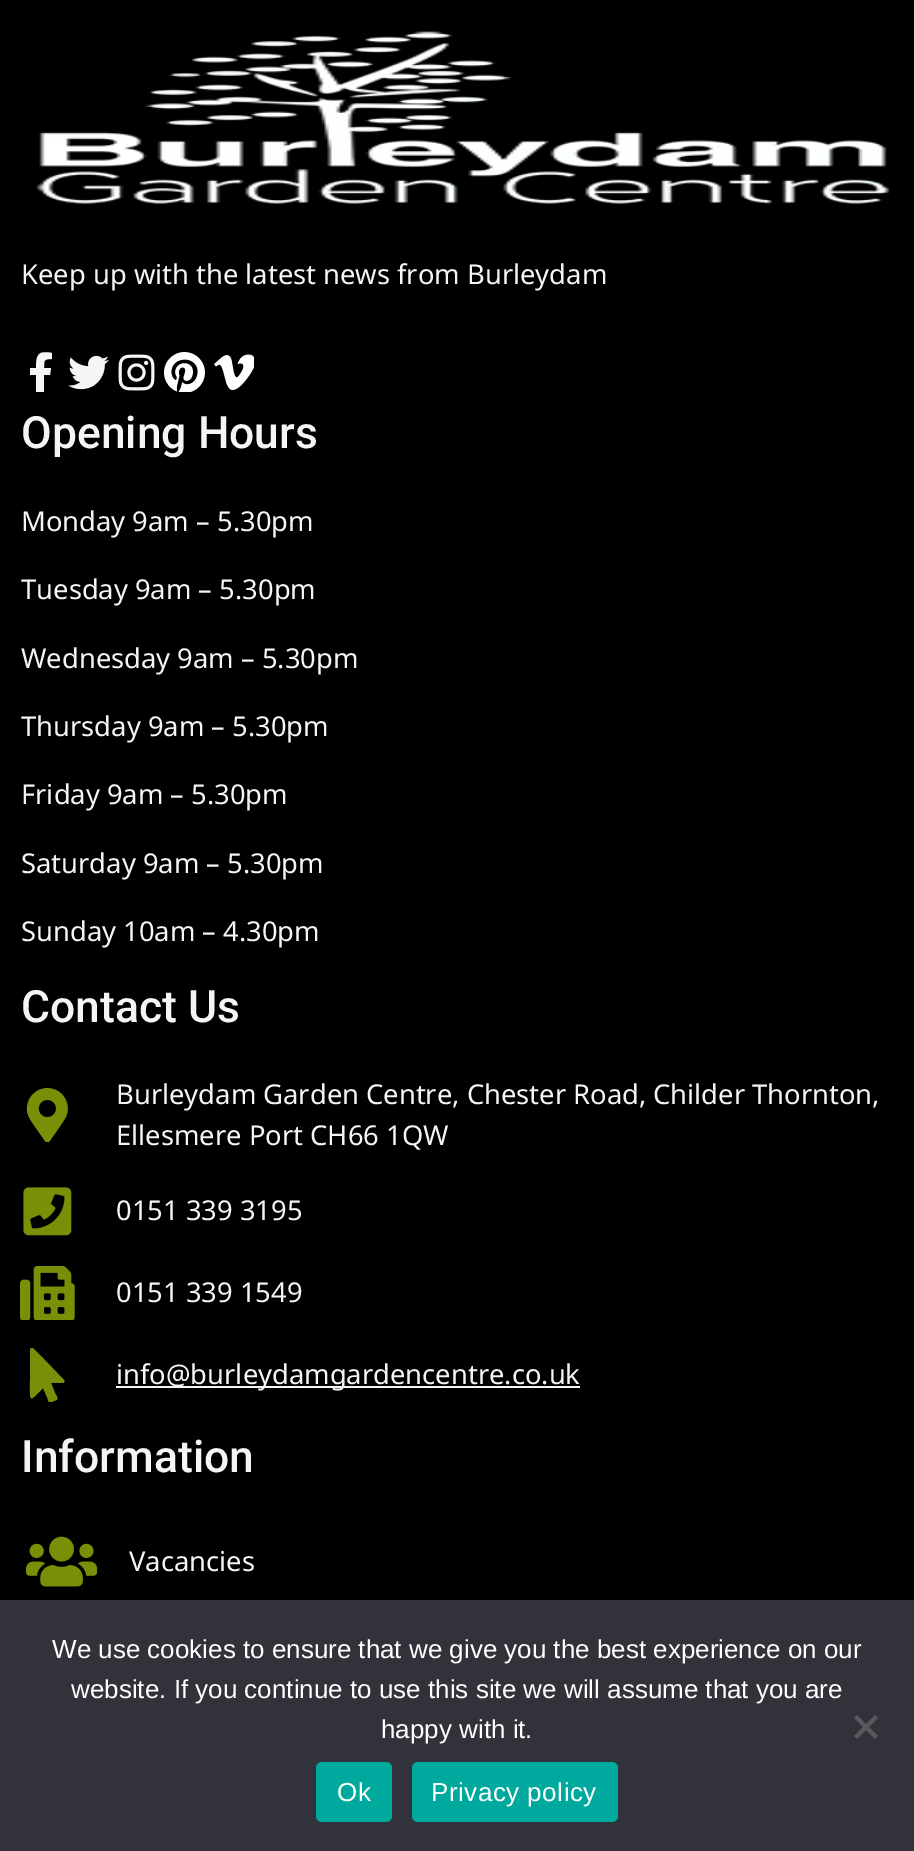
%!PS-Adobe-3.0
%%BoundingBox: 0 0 914 1851
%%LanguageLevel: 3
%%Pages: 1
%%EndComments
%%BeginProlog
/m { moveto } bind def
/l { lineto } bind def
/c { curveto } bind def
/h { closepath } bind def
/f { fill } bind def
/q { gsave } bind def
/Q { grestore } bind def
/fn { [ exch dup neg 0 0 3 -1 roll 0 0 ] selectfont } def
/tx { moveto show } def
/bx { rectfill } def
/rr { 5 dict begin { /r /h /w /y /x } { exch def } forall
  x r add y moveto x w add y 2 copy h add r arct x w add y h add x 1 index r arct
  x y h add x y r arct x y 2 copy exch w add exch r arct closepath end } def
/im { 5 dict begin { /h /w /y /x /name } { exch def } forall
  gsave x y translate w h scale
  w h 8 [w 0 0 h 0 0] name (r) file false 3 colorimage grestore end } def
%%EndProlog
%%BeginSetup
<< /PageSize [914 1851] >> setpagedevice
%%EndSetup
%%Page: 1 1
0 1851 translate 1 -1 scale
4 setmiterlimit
0 setgray
0 0 914 1851 bx
(image0.raw) 36 31 854 173 im
/NotoSans-Regular 27.35 fn
0.961 setgray
(Keep up with the latest news from Burleydam) 21 284 tx
q
20 352 42 40 rectclip
50 375 m 51 368 l 44 368 l 44 360 44 359 52 359 c 52 353 l 38 350 36 355 36 368 c 30 368 l 30 375 l 36 375 l 36 393 l 44 393 l 44 375 l h f
Q
(image1.raw) 68 355 41 35 im
(image2.raw) 118 354 37 37 im
(image3.raw) 164 352 41 40 im
(image4.raw) 214 354 40 37 im
/Roboto-Medium 44.5 fn
(Opening Hours) 21 448 tx
/NotoSans-Regular 27.35 fn
(Monday 9am – 5.30pm) 21 531 tx
(Tuesday 9am – 5.30pm) 21 599 tx
(Wednesday 9am – 5.30pm) 21 668 tx
(Thursday 9am – 5.30pm) 21 736 tx
(Friday 9am – 5.30pm) 21 804 tx
(Saturday 9am – 5.30pm) 21 873 tx
(Sunday 10am – 4.30pm) 21 941 tx
/Roboto-Medium 44.5 fn
(Contact Us) 21 1022 tx
(image5.raw) 26 1088 42 54 im
/NotoSans-Regular 27.35 fn
(Burleydam Garden Centre, Chester Road, Childer Thornton,) 116 1104 tx
(Ellesmere Port CH66 1QW) 116 1145 tx
(image6.raw) 23 1187 49 49 im
(0151 339 3195) 116 1220 tx
(image7.raw) 20 1266 55 54 im
(0151 339 1549) 116 1302 tx
q
20 1348 56 54 rectclip
0.475 0.561 0.031 setrgbcolor
63 1383 m 51 1383 l 55 1393 l 58 1399 59 1399 54 1401 c 48 1404 49 1402 47 1397 c 43 1388 l 29 1402 30 1404 30 1381 c 30 1358 l 30 1345 30 1345 39 1354 c 64 1380 l 65 1381 64 1383 63 1383 c h f
Q
116 1386 464 2 bx
(info@burleydamgardencentre.co.uk) 116 1384 tx
/Roboto-Medium 44.5 fn
(Information) 21 1472 tx
(image8.raw) 26 1536 72 51 im
/NotoSans-Regular 27.35 fn
(Vacancies) 129 1571 tx
0.196 0.196 0.227 setrgbcolor
0 1600 914 251 bx
/LiberationSans-Regular 26 fn
1 setgray
(We use cookies to ensure that we give you the best experience on our) 52 1658 tx
(website. If you continue to use this site we will assume that you are) 71 1698 tx
(happy with it.) 381 1738 tx
0.349 0.349 0.365 setrgbcolor
875 1715 m 878 1718 l 857 1739 l 854 1736 l h f
854 1718 m 857 1715 l 878 1736 l 875 1739 l h f
0 0.663 0.616 setrgbcolor
316 1762 76 60 6 rr f
1 setgray
337 1801 m 0.5 0 (Ok) ashow
0 0.663 0.616 setrgbcolor
412 1762 206 60 6 rr f
1 setgray
431 1801 m 0.5 0 (Privacy policy) ashow
showpage
%%EOF
